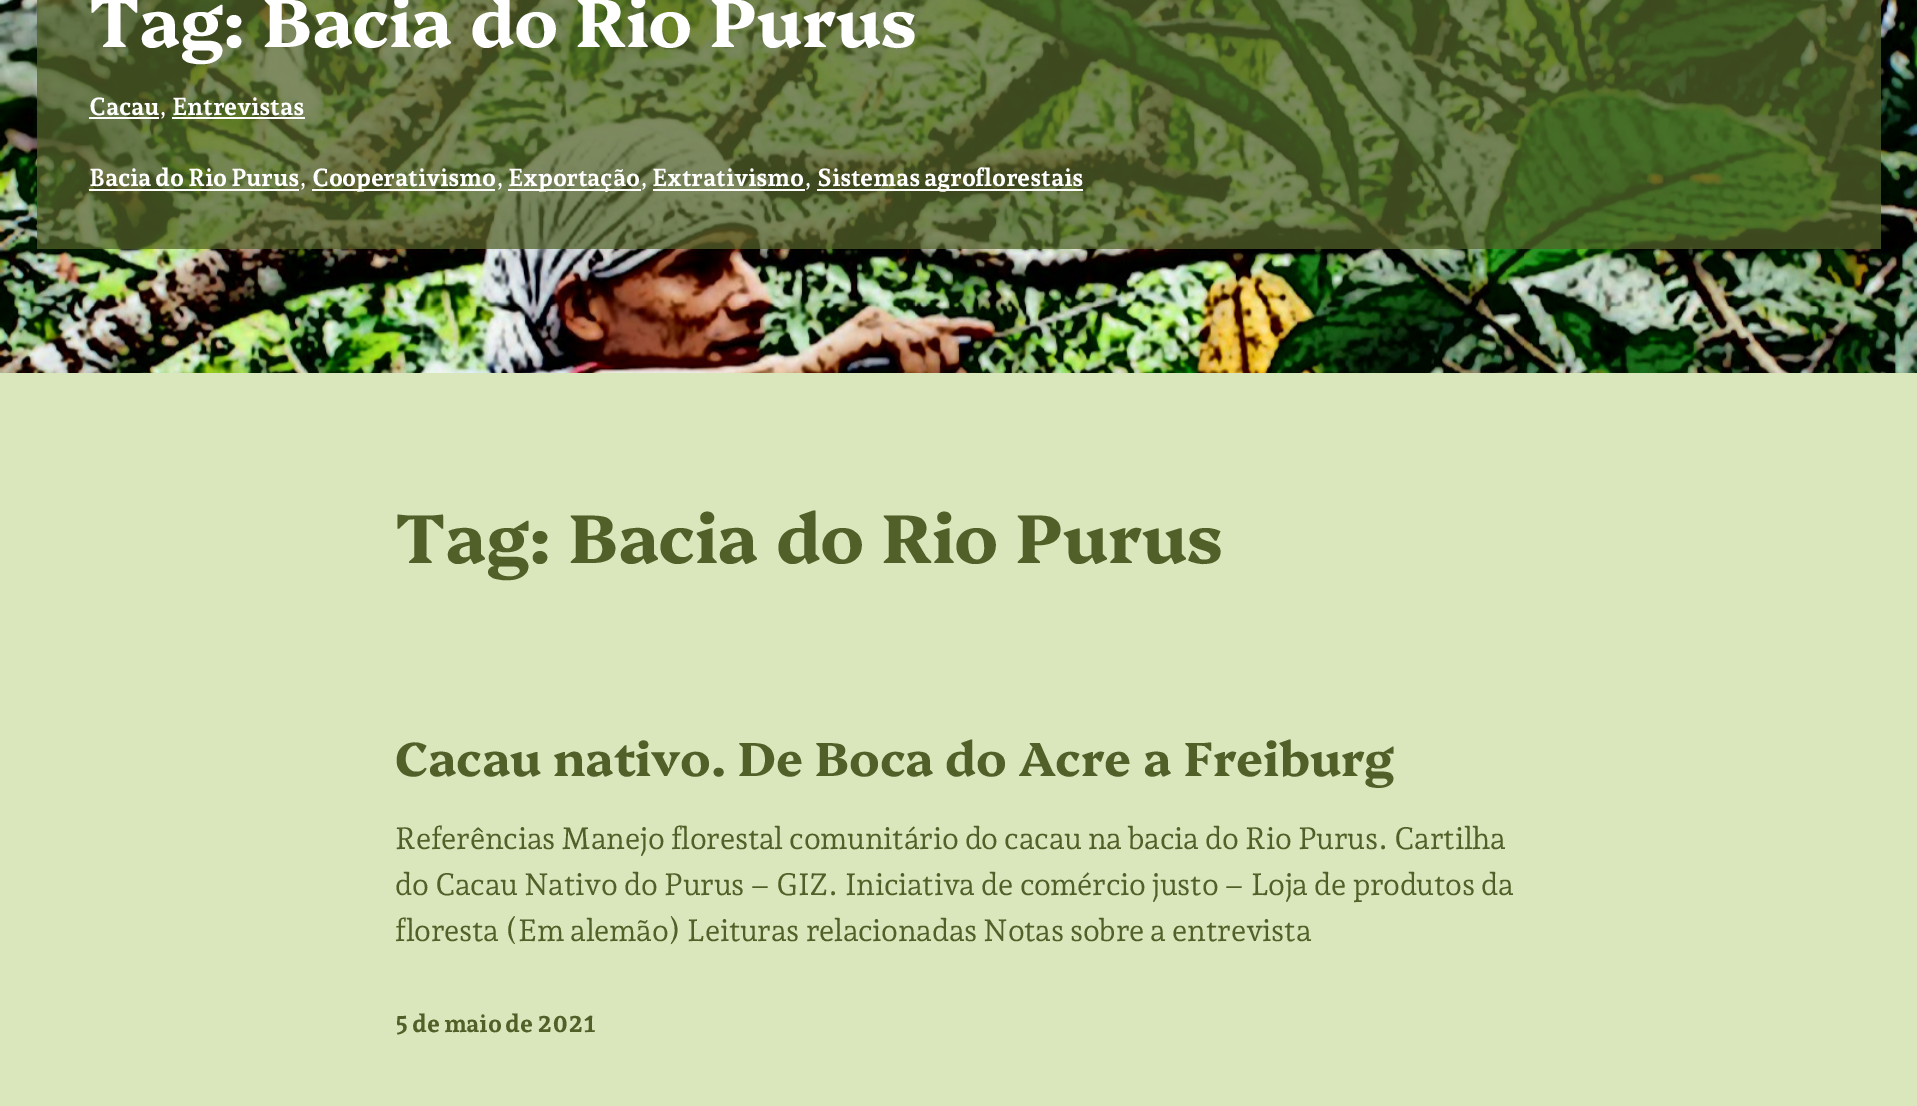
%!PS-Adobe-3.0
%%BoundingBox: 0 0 1917 1106
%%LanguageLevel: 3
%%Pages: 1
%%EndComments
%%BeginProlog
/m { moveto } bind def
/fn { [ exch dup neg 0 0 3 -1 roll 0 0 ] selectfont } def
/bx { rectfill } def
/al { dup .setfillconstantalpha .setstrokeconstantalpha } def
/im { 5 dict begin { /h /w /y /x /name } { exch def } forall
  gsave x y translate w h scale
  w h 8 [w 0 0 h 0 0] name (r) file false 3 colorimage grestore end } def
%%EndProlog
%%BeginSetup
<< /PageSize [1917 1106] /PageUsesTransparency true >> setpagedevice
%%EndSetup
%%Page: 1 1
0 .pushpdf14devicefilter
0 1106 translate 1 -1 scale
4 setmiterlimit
0.855 0.906 0.741 setrgbcolor
0 0 1917 1106 bx
(image0.raw) 0 0 1917 373 im
0.74 al
0.322 0.38 0.161 setrgbcolor
37 0 1844 249 bx
/Platypi-Bold 68.75 fn
1 al
1 setgray
89 47 m -0.2 0 (Tag: Bacia do Rio Purus) ashow
/AndadaPro-ExtraBold 24.5 fn
89 115 m -0.4 0 (Cacau) ashow
89 117 70 2 bx
/AndadaPro-Regular 24.5 fn
159 115 m -0.4 0 (,) ashow
/AndadaPro-ExtraBold 24.5 fn
172 115 m -0.4 0 (Entrevistas) ashow
172 117 133 2 bx
89 186 m -0.4 0 (Bacia do Rio Purus) ashow
89 189 210 2 bx
/AndadaPro-Regular 24.5 fn
299 186 m -0.4 0 (,) ashow
312 189 183 2 bx
/AndadaPro-ExtraBold 24.5 fn
312 186 m -0.4 0 (Cooperativismo) ashow
/AndadaPro-Regular 24.5 fn
496 186 m -0.4 0 (,) ashow
508 189 133 2 bx
/AndadaPro-ExtraBold 24.5 fn
508 186 m -0.4 0 (Exportação) ashow
/AndadaPro-Regular 24.5 fn
640 186 m -0.4 0 (,) ashow
/AndadaPro-ExtraBold 24.5 fn
652 186 m -0.4 0 (Extrativismo) ashow
653 189 152 2 bx
/AndadaPro-Regular 24.5 fn
804 186 m -0.4 0 (,) ashow
817 189 266 2 bx
/AndadaPro-ExtraBold 24.5 fn
817 186 m -0.4 0 (Sistemas agroflorestais) ashow
/Platypi-Bold 68.75 fn
0.318 0.376 0.157 setrgbcolor
395 563 m -0.2 0 (Tag: Bacia do Rio Purus) ashow
/Platypi-Bold 47.75 fn
395 776 m -0.2 0 (Cacau nativo. De Boca do Acre a Freiburg) ashow
/AndadaPro-Regular 30.65 fn
395 849 m -0.4 0 (Referências Manejo florestal comunitário do cacau na bacia do Rio Purus. Cartilha) ashow
395 895 m -0.4 0 (do Cacau Nativo do Purus – GIZ. Iniciativa de comércio justo – Loja de produtos da) ashow
395 941 m -0.4 0 (floresta \(Em alemão\) Leituras relacionadas Notas sobre a entrevista) ashow
/AndadaPro-ExtraBold 24.5 fn
395 1032 m -0.4 0 (5 de maio de 2021) ashow
.poppdf14devicefilter showpage
%%EOF
